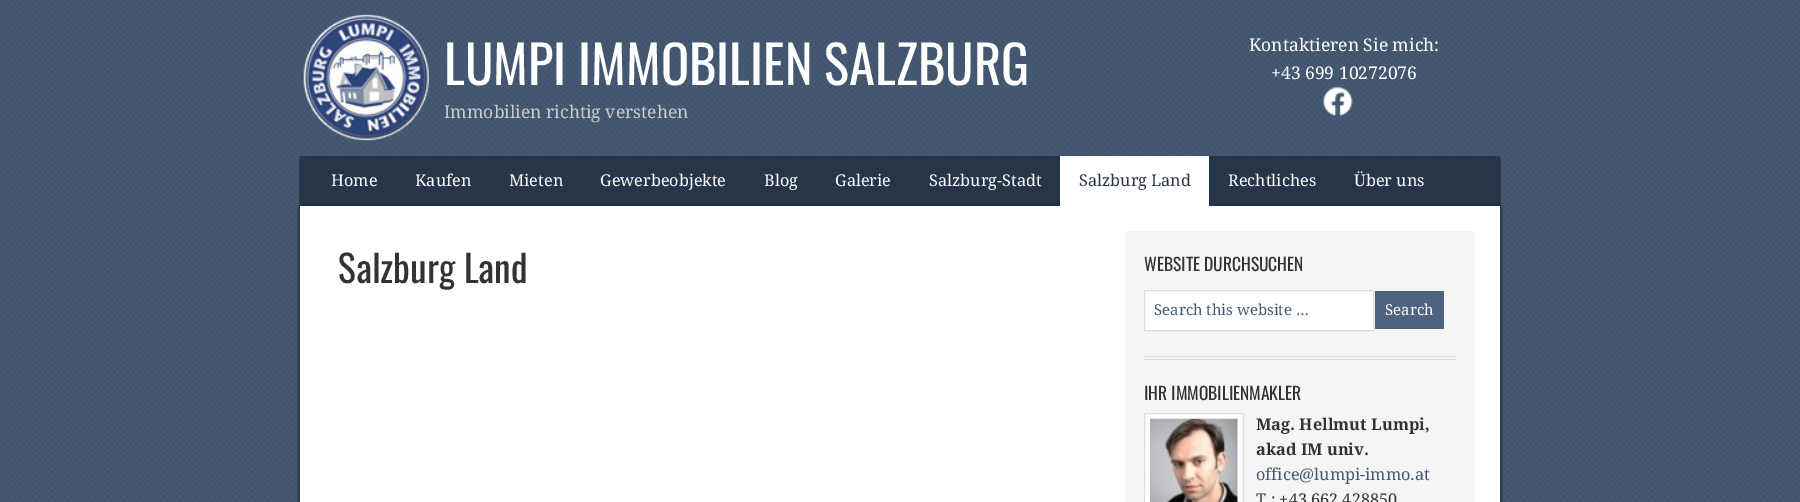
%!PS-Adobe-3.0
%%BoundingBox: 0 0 1800 502
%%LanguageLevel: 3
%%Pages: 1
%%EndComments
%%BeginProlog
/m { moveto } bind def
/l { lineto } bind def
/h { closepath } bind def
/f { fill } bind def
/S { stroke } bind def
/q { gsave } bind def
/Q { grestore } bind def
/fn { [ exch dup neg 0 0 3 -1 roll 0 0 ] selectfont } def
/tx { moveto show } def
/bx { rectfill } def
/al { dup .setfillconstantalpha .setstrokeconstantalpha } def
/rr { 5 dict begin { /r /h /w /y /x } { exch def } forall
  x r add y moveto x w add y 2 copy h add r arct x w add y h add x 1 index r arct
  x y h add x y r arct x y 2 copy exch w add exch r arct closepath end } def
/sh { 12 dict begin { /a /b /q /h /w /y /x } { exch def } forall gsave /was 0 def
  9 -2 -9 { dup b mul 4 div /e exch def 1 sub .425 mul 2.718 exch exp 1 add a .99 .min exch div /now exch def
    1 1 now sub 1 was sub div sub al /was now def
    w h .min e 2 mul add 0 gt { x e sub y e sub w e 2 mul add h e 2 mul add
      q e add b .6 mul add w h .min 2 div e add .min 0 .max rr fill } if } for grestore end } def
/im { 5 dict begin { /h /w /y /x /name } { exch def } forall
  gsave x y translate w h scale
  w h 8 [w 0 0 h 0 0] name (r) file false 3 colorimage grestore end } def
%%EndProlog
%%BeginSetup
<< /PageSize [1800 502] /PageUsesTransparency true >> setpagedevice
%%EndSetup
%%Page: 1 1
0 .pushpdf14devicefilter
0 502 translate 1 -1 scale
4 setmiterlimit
1 setgray
0 0 1800 502 bx
(image0.raw) 0 0 1800 502 im
(image1.raw) 303 14 126 127 im
/Oswald-Regular 52.5 fn
(LUMPI IMMOBILIEN SALZBURG) 444 85 tx
/DroidSerif-Regular 17.5 fn
0.8 setgray
(Immobilien richtig verstehen) 444 118 tx
1 setgray
(Kontaktieren Sie mich:) 1249 51 tx
(+43 699 10272076) 1271 79 tx
(image2.raw) 1322 86 31 31 im
0 setgray
300 158 1200 50 0 0.5 1 sh
0.153 0.208 0.286 setrgbcolor
300 156 1200 50 bx
/DroidSerif-Regular 16.25 fn
1 setgray
(Home) 331 186 tx
(Kaufen) 415 186 tx
(Mieten) 509 186 tx
(Gewerbeobjekte) 600 186 tx
(Blog) 764 186 tx
(Galerie) 835 186 tx
(Salzburg-Stadt) 929 186 tx
0 setgray
300 208 1200 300 0 2 1 sh
1 setgray
1060 156 149 50 bx
0.153 0.208 0.286 setrgbcolor
(Salzburg Land) 1079 186 tx
1 setgray
(Rechtliches) 1228 186 tx
(Über uns) 1354 186 tx
300 206 1200 296 bx
/Oswald-Regular 37.5 fn
0.2 setgray
(Salzburg Land) 338 283 tx
0.961 setgray
1125 231 350 271 bx
0.867 setgray
1144 356 312 1 bx
1144 359 312 1 bx
/Oswald-Regular 17.5 fn
0.2 setgray
(WEBSITE DURCHSUCHEN) 1144 271 tx
1 setgray
1144.5 290.5 m 1373.5 290.5 l 1373.5 330.5 l 1144.5 330.5 l h q f Q
0.867 setgray
S
/DroidSerif-Regular 15 fn
0.267 0.341 0.439 setrgbcolor
(Search this website …) 1154 315 tx
0.302 0.388 0.498 setrgbcolor
1375 291 69 38 bx
1 setgray
(Search) 1385 315 tx
/Oswald-Regular 17.5 fn
0.2 setgray
(IHR IMMOBILIENMAKLER) 1144 400 tx
1 setgray
1144.5 413.5 m 1243.5 413.5 l 1243.5 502.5 l 1144.5 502.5 l h q f Q
0.867 setgray
S
(image3.raw) 1150 418 88 84 im
/DroidSerif-Bold 16.25 fn
0.2 setgray
(Mag. Hellmut Lumpi,) 1256 430 tx
(akad IM univ.) 1256 455 tx
/DroidSerif-Regular 16.25 fn
0.267 0.341 0.439 setrgbcolor
(office@lumpi-immo.at) 1256 480 tx
0.2 setgray
(T.: +43 662 428850) 1256 505 tx
.poppdf14devicefilter showpage
%%EOF
